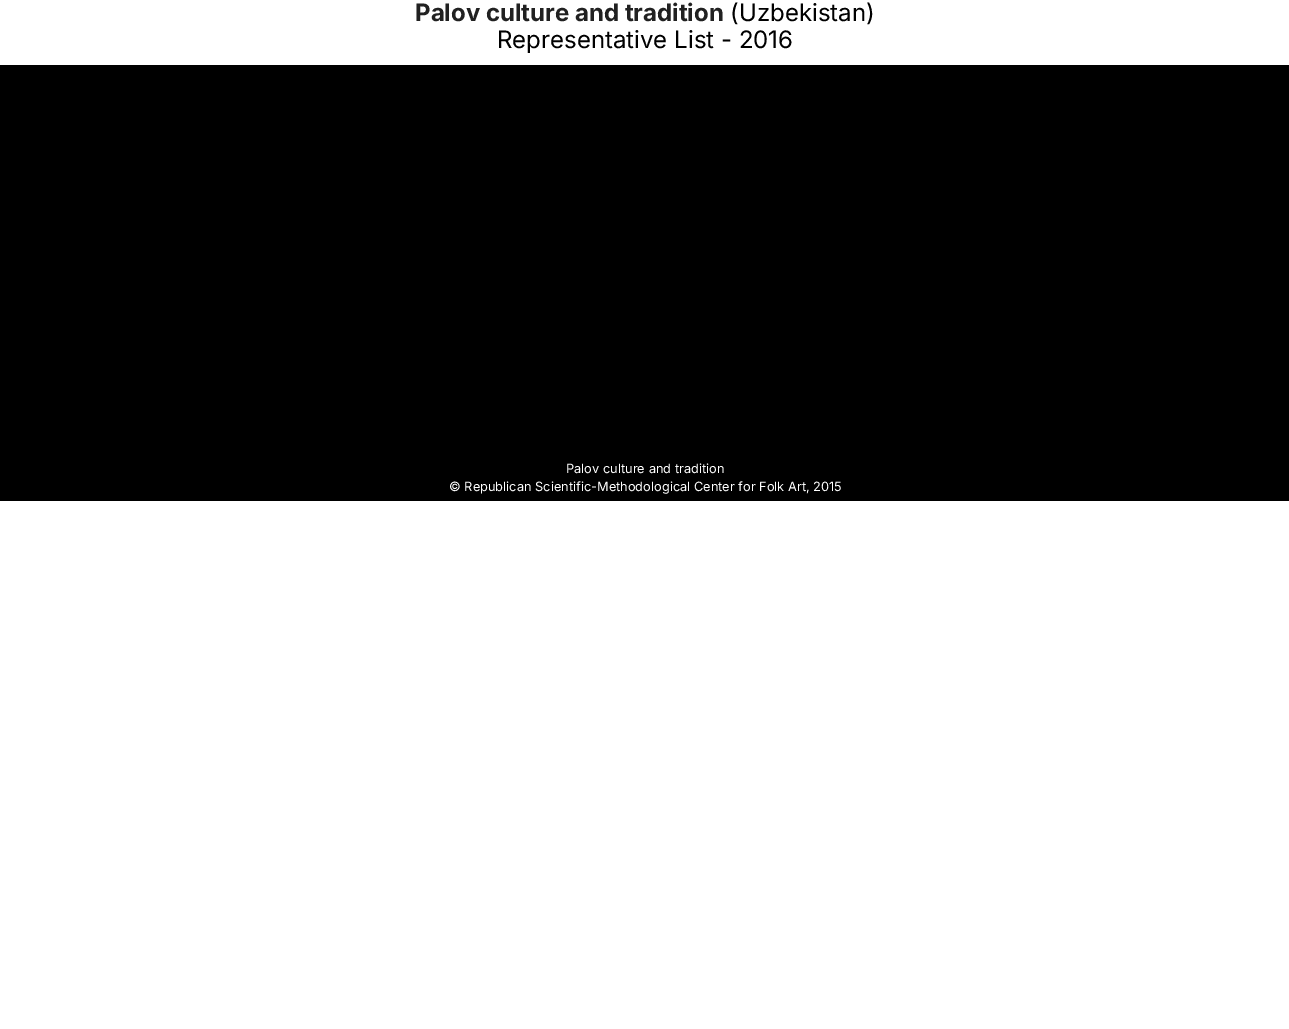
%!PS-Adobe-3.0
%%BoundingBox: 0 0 1289 1029
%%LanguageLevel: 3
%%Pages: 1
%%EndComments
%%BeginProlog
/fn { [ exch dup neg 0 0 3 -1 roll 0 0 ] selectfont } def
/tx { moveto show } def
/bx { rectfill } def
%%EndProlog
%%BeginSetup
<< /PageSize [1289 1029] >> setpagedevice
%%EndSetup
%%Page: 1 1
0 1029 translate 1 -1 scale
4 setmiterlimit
1 setgray
0 0 1289 1029 bx
/Inter-Bold 24 fn
0.129 setgray
(Palov culture and tradition) 415 21 tx
/Inter-Regular 24 fn
0 setgray
(\(Uzbekistan\)) 730 21 tx
(Representative List - 2016) 497 48 tx
0 65 1289 436 bx
/Inter-Regular 12.8 fn
1 setgray
(Palov culture and tradition) 566 473 tx
(© Republican Scientific-Methodological Center for Folk Art, 2015) 449 491 tx
showpage
%%EOF
